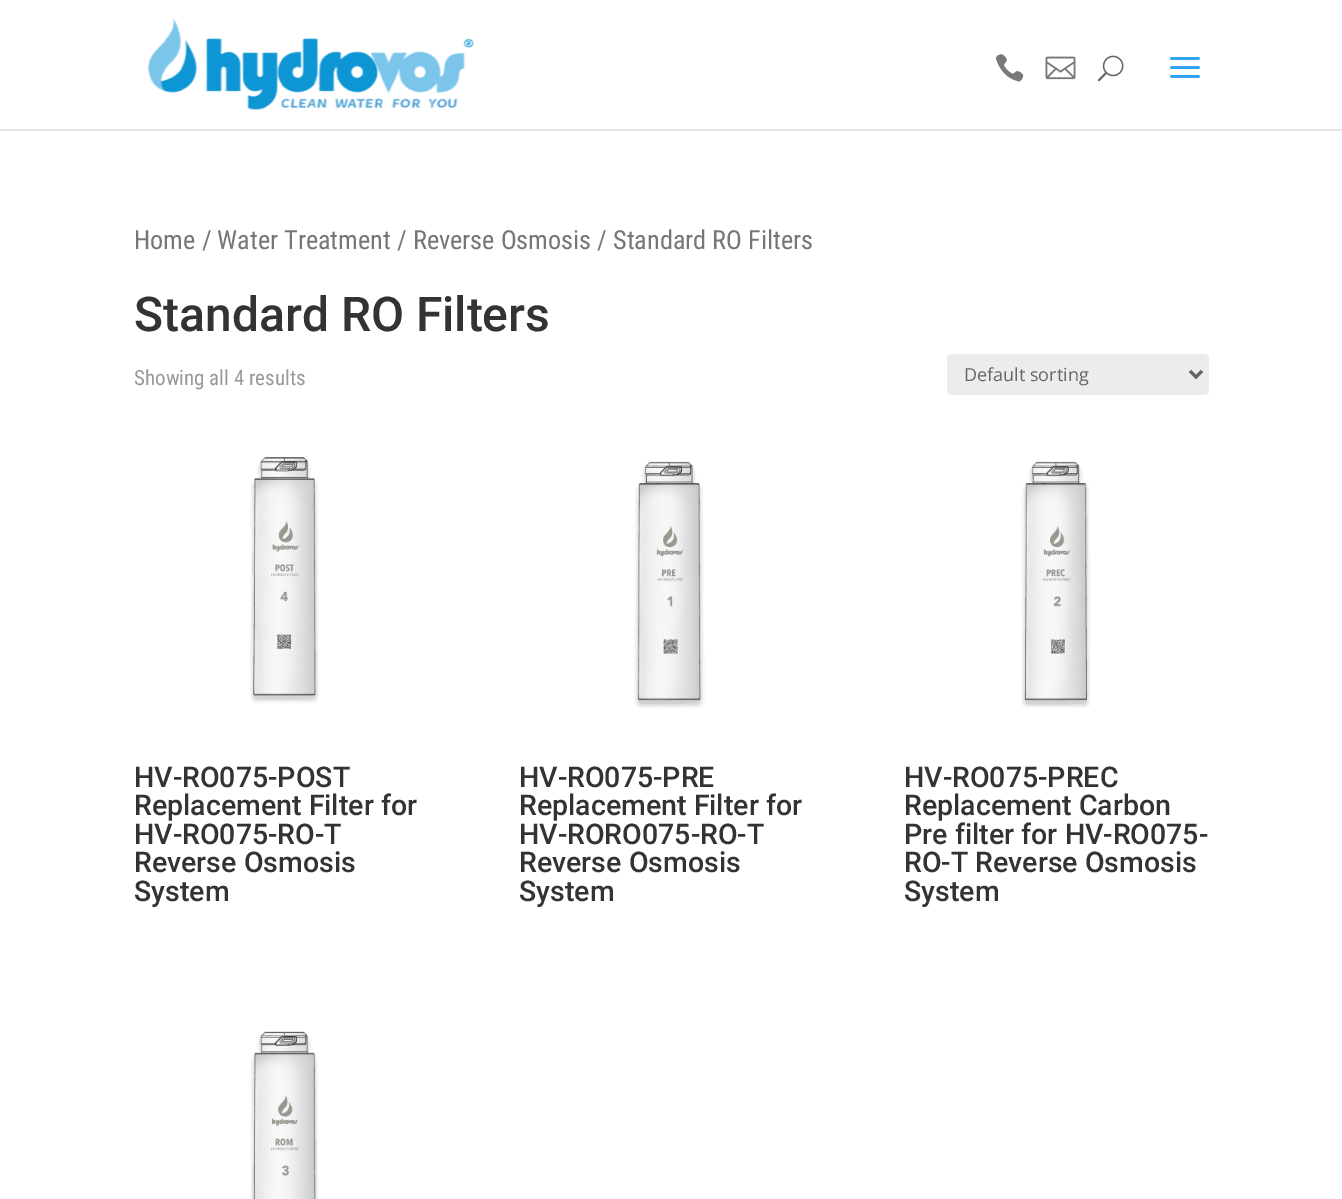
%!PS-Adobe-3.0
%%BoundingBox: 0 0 1342 1199
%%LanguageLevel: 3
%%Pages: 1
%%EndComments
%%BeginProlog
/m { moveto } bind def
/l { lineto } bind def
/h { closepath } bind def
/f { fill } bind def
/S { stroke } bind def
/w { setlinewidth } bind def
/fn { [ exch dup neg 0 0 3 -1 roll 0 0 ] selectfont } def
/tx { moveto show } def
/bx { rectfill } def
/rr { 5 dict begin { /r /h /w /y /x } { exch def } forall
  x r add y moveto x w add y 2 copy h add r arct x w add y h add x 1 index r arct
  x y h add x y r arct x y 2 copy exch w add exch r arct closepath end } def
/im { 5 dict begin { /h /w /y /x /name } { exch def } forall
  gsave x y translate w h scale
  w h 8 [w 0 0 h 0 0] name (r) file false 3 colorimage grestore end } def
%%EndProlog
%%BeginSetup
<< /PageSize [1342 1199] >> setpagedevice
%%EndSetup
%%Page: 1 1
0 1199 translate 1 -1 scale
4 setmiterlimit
1 setgray
0 0 1342 1199 bx
0.902 setgray
0 129 m 0 131 l 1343 131 l 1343 2 l 1342 2 l 1342 129 l h f
(image0.raw) 148 18 326 92 im
(image1.raw) 995 54 29 28 im
(image2.raw) 1045 56 31 24 im
(image3.raw) 1097 55 27 27 im
(image4.raw) 1170 57 30 21 im
/RobotoCondensed-Regular 26.25 fn
0.463 setgray
(Home / Water Treatment / Reverse Osmosis / Standard RO Filters) 134 249 tx
/Roboto-Medium 48 fn
0.2 setgray
(Standard RO Filters) 134 331 tx
/RobotoCondensed-Regular 21 fn
0.6 setgray
(Showing all 4 results) 134 385 tx
0.925 setgray
947 354 262 41 5 rr f
0.4 setgray
3 w
1190 371 m 1196 377 l 1202 371 l S
/OpenSans-Regular 18 fn
(Default sorting) 964 381 tx
(image5.raw) 250 457 69 247 im
/Roboto-Medium 28.5 fn
0.2 setgray
(HV-RO075-POST) 134 787 tx
(Replacement Filter for) 134 815 tx
(HV-RO075-RO-T) 134 844 tx
(Reverse Osmosis) 134 872 tx
(System) 134 901 tx
(image6.raw) 634 461 71 248 im
(HV-RO075-PRE) 519 787 tx
(Replacement Filter for) 519 815 tx
(HV-RORO075-RO-T) 519 844 tx
(Reverse Osmosis) 519 872 tx
(System) 519 901 tx
(image7.raw) 1021 461 70 247 im
(HV-RO075-PREC) 904 787 tx
(Replacement Carbon) 904 815 tx
(Pre filter for HV-RO075-) 904 844 tx
(RO-T Reverse Osmosis) 904 872 tx
(System) 904 901 tx
(image8.raw) 250 1031 68 168 im
showpage
%%EOF
